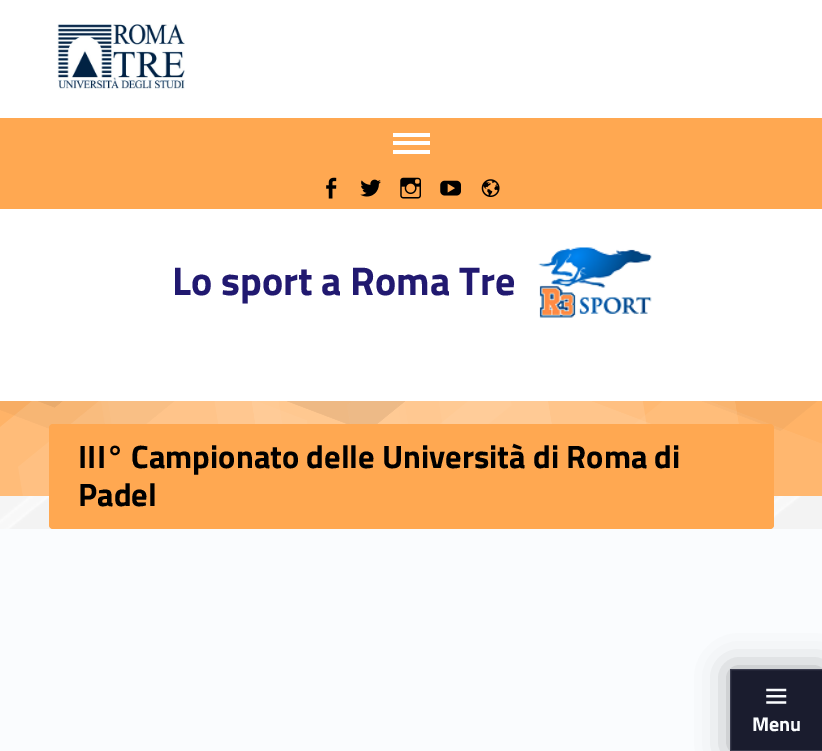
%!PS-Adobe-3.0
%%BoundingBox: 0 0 822 751
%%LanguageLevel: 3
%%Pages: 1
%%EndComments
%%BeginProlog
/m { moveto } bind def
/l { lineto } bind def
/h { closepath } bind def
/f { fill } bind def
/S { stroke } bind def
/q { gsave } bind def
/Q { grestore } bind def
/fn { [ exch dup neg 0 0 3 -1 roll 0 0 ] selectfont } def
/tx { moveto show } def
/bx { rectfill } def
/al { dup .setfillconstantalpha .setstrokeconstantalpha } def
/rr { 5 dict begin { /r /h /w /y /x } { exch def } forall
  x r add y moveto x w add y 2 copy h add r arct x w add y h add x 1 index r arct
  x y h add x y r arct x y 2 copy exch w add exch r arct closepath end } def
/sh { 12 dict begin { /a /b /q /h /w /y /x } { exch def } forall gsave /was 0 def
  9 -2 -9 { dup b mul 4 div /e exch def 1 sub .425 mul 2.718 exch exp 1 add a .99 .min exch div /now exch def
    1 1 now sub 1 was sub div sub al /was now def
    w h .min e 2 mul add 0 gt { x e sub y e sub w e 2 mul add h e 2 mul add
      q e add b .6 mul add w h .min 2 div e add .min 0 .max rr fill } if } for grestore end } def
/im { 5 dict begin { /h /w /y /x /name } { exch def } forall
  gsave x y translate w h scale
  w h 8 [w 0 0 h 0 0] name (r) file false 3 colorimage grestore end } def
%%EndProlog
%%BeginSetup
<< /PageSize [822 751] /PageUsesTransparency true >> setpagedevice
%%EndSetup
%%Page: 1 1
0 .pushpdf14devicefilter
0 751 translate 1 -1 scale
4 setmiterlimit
1 setgray
0 0 822 751 bx
(image0.raw) 0 496 822 33 im
1 0.659 0.318 setrgbcolor
0 118 822 91 bx
1 setgray
393 133 37 4 bx
393 141 37 4 bx
393 150 37 4 bx
(image1.raw) 326 177 11 22 im
(image2.raw) 360 179 21 18 im
(image3.raw) 400 177 21 22 im
(image4.raw) 440 180 21 16 im
(image5.raw) 481 179 19 18 im
(image6.raw) 57 24 128 66 im
/TitilliumWeb-Bold 40 fn
0.129 0.098 0.439 setrgbcolor
(Lo sport a Roma Tre) 172 295 tx
(image7.raw) 538 247 114 71 im
0.98 0.988 0.996 setrgbcolor
0 529 822 222 bx
0 setgray
730 669 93 82 0 16 0.33 sh
0.102 0.11 0.18 setrgbcolor
730.5 669.5 m 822.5 669.5 l 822.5 750.5 l 730.5 750.5 l h q f Q
0.227 0.235 0.306 setrgbcolor
S
(image8.raw) 766 688 21 16 im
/TitilliumWeb-Bold 20 fn
0.98 0.988 0.996 setrgbcolor
(Menu) 752 731 tx
1 0.702 0.404 setrgbcolor
0 401 822 95 bx
(image9.raw) 0 401 822 95 im
1 0.659 0.318 setrgbcolor
49 424 725 105 4 rr f
/TitilliumWeb-Bold 32.4 fn
0 setgray
(III° Campionato delle Università di Roma di) 78 468 tx
(Padel) 78 506 tx
.poppdf14devicefilter showpage
%%EOF
